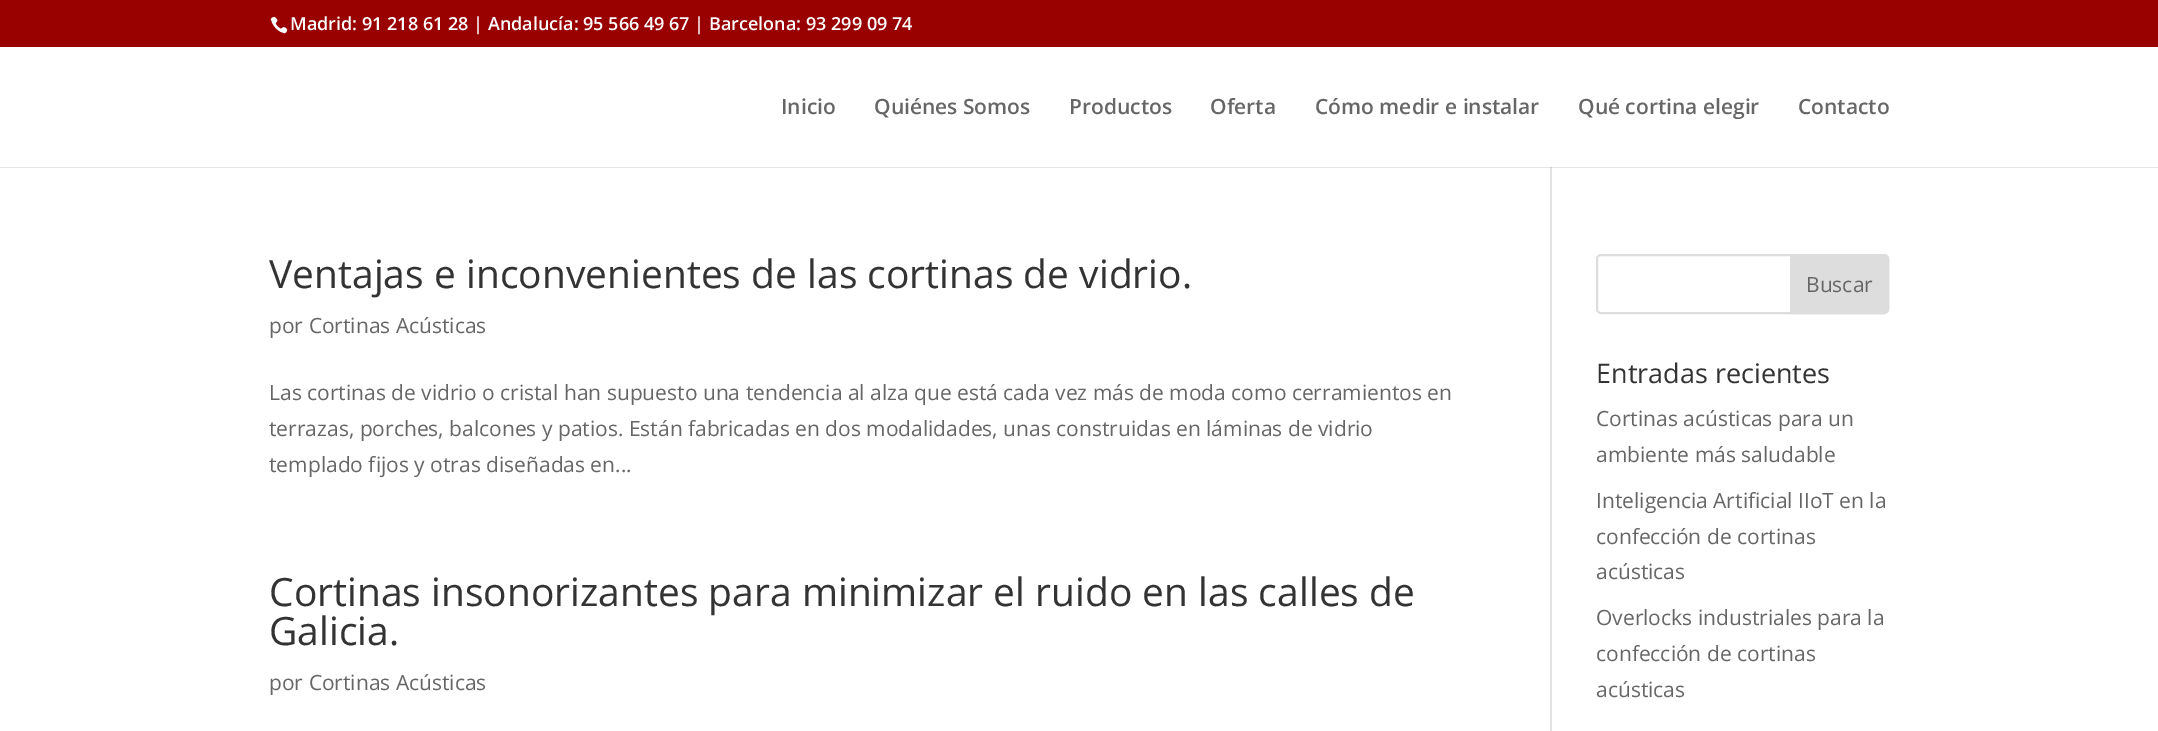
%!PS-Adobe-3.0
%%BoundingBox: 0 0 2158 731
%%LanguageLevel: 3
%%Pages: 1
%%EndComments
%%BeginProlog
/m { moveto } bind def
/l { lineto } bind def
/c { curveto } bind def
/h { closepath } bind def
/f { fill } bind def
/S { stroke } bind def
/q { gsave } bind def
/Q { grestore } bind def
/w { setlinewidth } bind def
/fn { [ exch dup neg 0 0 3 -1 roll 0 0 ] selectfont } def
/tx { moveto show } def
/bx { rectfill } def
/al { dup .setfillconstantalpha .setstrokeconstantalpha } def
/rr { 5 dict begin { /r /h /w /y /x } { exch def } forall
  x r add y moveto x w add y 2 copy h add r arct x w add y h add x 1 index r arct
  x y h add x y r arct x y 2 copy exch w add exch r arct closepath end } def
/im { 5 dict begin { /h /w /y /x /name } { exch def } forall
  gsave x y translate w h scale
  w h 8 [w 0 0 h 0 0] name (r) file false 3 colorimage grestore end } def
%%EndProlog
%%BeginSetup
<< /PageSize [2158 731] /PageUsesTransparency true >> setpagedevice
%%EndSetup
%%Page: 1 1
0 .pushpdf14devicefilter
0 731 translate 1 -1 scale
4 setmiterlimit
1 setgray
0 0 2158 731 bx
0.6 0 0 setrgbcolor
0 0 2158 47 bx
(image0.raw) 270 16 18 18 im
/OpenSans-SemiBold 18 fn
1 setgray
(Madrid: 91 218 61 28 | Andalucía: 95 566 49 67 | Barcelona: 93 299 09 74) 290 30 tx
0.886 setgray
1550 167 2 564 bx
0.1 al
0 setgray
0 166 m 0 168 l 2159 168 l 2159 48 l 2158 48 l 2158 166 l h f
1 al
1 setgray
0 166 2158 1 bx
/OpenSans-SemiBold 21 fn
0.4 setgray
(Inicio) 781 114 tx
(Quiénes Somos) 874 114 tx
(Productos) 1069 114 tx
(Oferta) 1210 114 tx
(Cómo medir e instalar) 1315 114 tx
(Qué cortina elegir) 1578 114 tx
(Contacto) 1798 114 tx
/OpenSans-Regular 39 fn
0.2 setgray
(Ventajas e inconvenientes de las cortinas de vidrio.) 269 288 tx
/OpenSans-Regular 21 fn
0.4 setgray
(por Cortinas Acústicas) 269 333 tx
(Las cortinas de vidrio o cristal han supuesto una tendencia al alza que está cada vez más de moda como cerramientos en) 269 400 tx
(terrazas, porches, balcones y patios. Están fabricadas en dos modalidades, unas construidas en láminas de vidrio) 269 436 tx
(templado fijos y otras diseñadas en...) 269 472 tx
/OpenSans-Regular 39 fn
0.2 setgray
(Cortinas insonorizantes para minimizar el ruido en las calles de) 269 606 tx
(Galicia.) 269 645 tx
/OpenSans-Regular 21 fn
0.4 setgray
(por Cortinas Acústicas) 269 690 tx
0.867 setgray
2 w
1597 255 291 58 4 rr S
1791 255 m 1884 255 l 1886 255 1888 257 1888 259 c 1888 309 l 1888 311 1886 313 1884 313 c 1791 313 l h q f Q
S
0.4 setgray
(Buscar) 1806 292 tx
/OpenSans-Regular 27 fn
0.2 setgray
(Entradas recientes) 1596 383 tx
/OpenSans-Regular 21 fn
0.4 setgray
(Cortinas acústicas para un) 1596 426 tx
(ambiente más saludable) 1596 462 tx
(Inteligencia Artificial IIoT en la) 1596 508 tx
(confección de cortinas) 1596 544 tx
(acústicas) 1596 579 tx
(Overlocks industriales para la) 1596 625 tx
(confección de cortinas) 1596 661 tx
(acústicas) 1596 697 tx
.poppdf14devicefilter showpage
%%EOF
